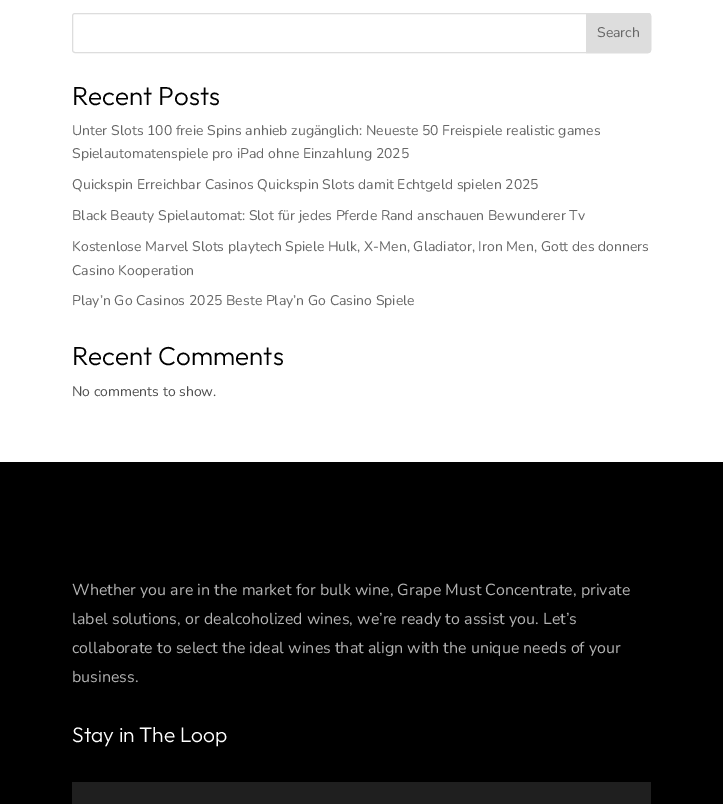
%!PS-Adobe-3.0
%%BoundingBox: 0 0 723 804
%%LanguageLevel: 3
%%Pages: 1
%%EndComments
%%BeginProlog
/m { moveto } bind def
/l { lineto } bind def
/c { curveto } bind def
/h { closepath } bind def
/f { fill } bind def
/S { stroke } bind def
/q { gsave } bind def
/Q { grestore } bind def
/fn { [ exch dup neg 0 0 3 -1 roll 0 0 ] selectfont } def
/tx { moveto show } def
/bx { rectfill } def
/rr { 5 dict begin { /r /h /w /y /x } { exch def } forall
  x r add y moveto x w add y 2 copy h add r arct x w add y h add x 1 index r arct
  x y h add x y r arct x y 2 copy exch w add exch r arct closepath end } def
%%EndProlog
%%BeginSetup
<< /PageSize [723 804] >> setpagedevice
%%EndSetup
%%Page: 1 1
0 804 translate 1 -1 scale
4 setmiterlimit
1 setgray
0 0 723 804 bx
0.867 setgray
72.5 13.5 578 39 2.5 rr S
586.5 13.5 m 648 13.5 l 649.5 13.5 650.5 14.5 650.5 16 c 650.5 50 l 650.5 51.5 649.5 52.5 648 52.5 c 586.5 52.5 l h q f Q
S
/Nunito-Regular 14 fn
0.4 setgray
(Search) 597 37 tx
/Outfit-Light 26 fn
0 setgray
(Recent Posts) 72 105 tx
/Nunito-Regular 14 fn
0.4 setgray
(Unter Slots 100 freie Spins anhieb zugänglich: Neueste 50 Freispiele realistic games) 72 135 tx
(Spielautomatenspiele pro iPad ohne Einzahlung 2025) 72 158 tx
(Quickspin Erreichbar Casinos Quickspin Slots damit Echtgeld spielen 2025) 72 189 tx
(Black Beauty Spielautomat: Slot für jedes Pferde Rand anschauen Bewunderer Tv) 72 220 tx
(Kostenlose Marvel Slots playtech Spiele Hulk, X-Men, Gladiator, Iron Men, Gott des donners) 72 251 tx
(Casino Kooperation) 72 275 tx
(Play’n Go Casinos 2025 Beste Play’n Go Casino Spiele) 72 305 tx
/Outfit-Light 26 fn
0 setgray
(Recent Comments) 72 365 tx
/Nunito-Regular 14 fn
0.302 setgray
(No comments to show.) 72 396 tx
0 setgray
0 462 723 342 bx
/Nunito-Regular 16 fn
0.702 setgray
(Whether you are in the market for bulk wine, Grape Must Concentrate, private) 72 595 tx
(label solutions, or dealcoholized wines, we’re ready to assist you. Let’s) 72 624 tx
(collaborate to select the ideal wines that align with the unique needs of your) 72 653 tx
(business.) 72 682 tx
/Outfit-Light 21 fn
1 setgray
(Stay in The Loop) 72 742 tx
0.122 setgray
72 782 579 22 bx
showpage
%%EOF
